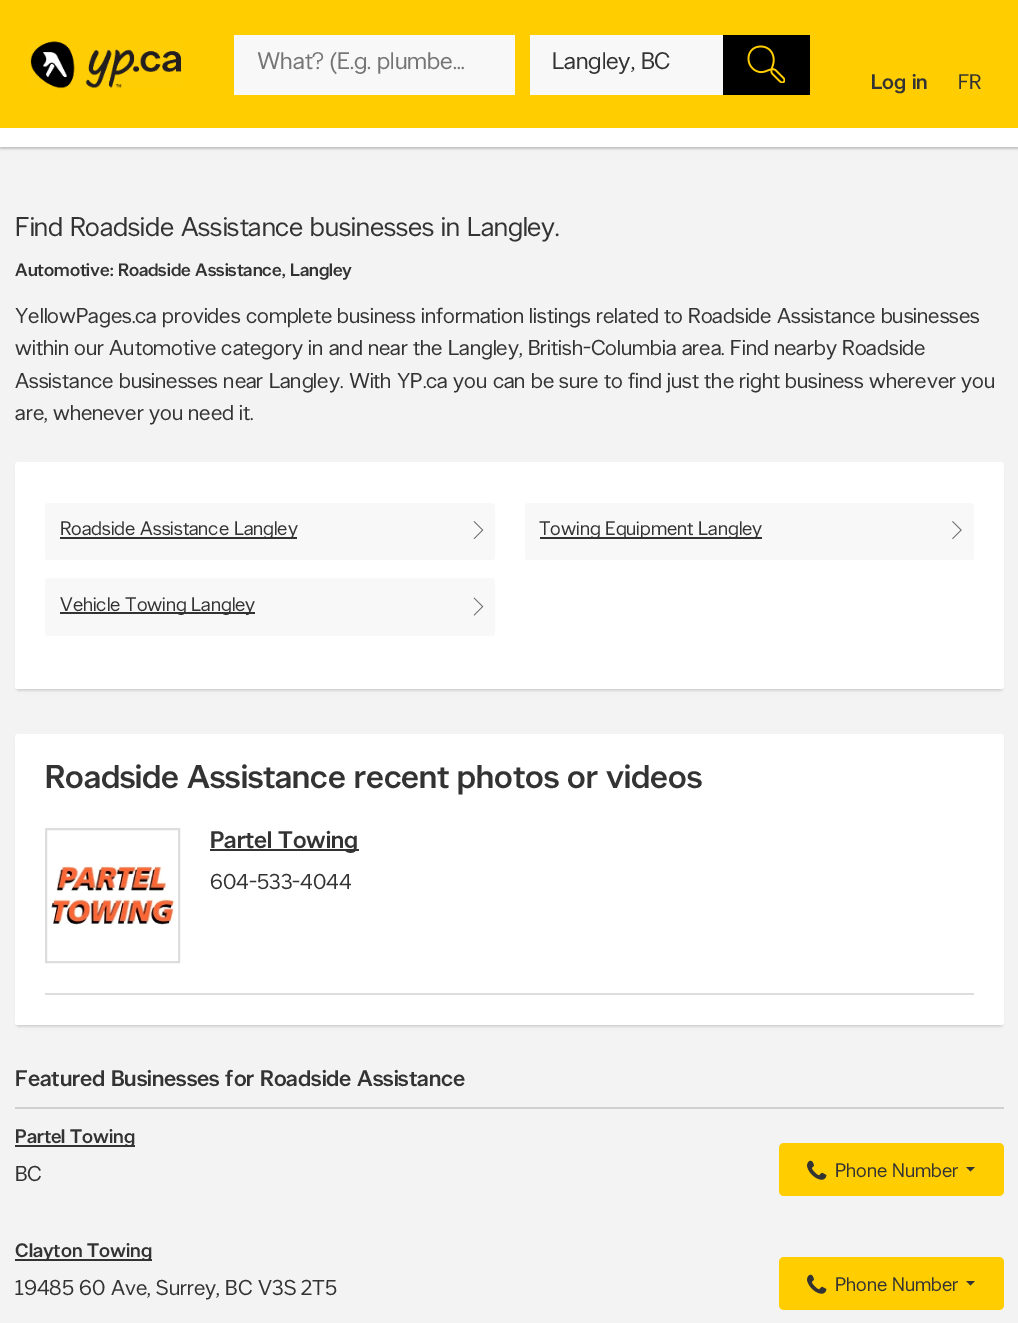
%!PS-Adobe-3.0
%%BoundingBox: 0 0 1018 1323
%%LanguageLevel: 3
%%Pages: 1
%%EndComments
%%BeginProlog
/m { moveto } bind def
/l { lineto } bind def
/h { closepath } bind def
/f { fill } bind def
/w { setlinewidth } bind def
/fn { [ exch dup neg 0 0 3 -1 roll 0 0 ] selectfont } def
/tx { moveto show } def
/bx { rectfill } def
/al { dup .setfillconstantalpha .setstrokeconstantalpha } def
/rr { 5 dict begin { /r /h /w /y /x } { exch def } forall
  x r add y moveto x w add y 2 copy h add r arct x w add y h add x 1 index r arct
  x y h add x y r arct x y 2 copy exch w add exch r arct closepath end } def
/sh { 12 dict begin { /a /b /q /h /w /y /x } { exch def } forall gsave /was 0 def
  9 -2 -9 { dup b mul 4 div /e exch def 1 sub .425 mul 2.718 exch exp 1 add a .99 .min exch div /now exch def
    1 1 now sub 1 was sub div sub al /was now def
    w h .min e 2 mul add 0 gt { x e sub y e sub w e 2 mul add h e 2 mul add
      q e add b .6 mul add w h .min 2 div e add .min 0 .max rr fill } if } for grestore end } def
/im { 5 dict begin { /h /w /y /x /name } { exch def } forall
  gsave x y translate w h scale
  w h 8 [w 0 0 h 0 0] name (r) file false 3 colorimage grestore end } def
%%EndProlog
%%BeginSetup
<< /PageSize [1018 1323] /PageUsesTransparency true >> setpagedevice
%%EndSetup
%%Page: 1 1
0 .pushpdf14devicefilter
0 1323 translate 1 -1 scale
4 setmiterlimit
0.953 setgray
0 0 1018 1323 bx
0 setgray
0 83 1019 66 0 1 0.2 sh
1 0.804 0 setrgbcolor
0 0 1018 128 bx
(image0.raw) 30 41 152 48 im
0.973 setgray
234 35 281 60 bx
/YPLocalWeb-Regular 24 fn
0.459 setgray
(What? \(E.g. plumbe…) 257 69 tx
0.973 setgray
530 35 193 60 bx
0.2 setgray
(Langley, BC) 552 69 tx
0 setgray
723 35 87 60 bx
(image1.raw) 747 45 38 38 im
/YPLocalWeb-Medium 21 fn
0.2 setgray
(Log in) 871 89 tx
/YPLocalWeb-Regular 21 fn
(FR) 958 89 tx
1 setgray
0 128 1018 19 bx
/YPLocalWeb-Regular 27 fn
0.2 setgray
(Find Roadside Assistance businesses in Langley.) 15 236 tx
/YPLocalWeb-Medium 18 fn
(Automotive: Roadside Assistance, Langley) 15 276 tx
/YPLocalWeb-Regular 21.6 fn
(YellowPages.ca provides complete business information listings related to Roadside Assistance businesses) 15 323 tx
(within our Automotive category in and near the Langley, British-Columbia area. Find nearby Roadside) 15 355 tx
(Assistance businesses near Langley. With YP.ca you can be sure to find just the right business wherever you) 15 388 tx
(are, whenever you need it.) 15 420 tx
0 setgray
17 467 985 223 1.5 1.5 0.2 sh
1 setgray
15 462 989 227 3 rr f
0.973 setgray
45 503 450 57 3 rr f
0.2 setgray
60 537 237 2 bx
/YPLocalWeb-Regular 19.5 fn
(Roadside Assistance Langley) 60 535 tx
(image2.raw) 473 521 11 18 im
0.973 setgray
525 503 449 57 3 rr f
0.2 setgray
540 537 222 2 bx
(Towing Equipment Langley) 539 535 tx
(image3.raw) 952 521 10 18 im
0.973 setgray
45 578 450 58 3 rr f
0.2 setgray
60 612 195 2 bx
(Vehicle Towing Langley) 60 611 tx
(image4.raw) 473 597 11 19 im
0 setgray
17 738 985 288 1.5 1.5 0.2 sh
1 setgray
15 734 989 291 3 rr f
/YPLocalWeb-Medium 33 fn
0.2 setgray
(Roadside Assistance recent photos or videos) 45 788 tx
0.867 setgray
45 993 929 2 bx
(image5.raw) 51 866 124 59 im
2 w
46 829 133 133 rectstroke
0.2 setgray
210 849 149 2 bx
/YPLocalWeb-Medium 24 fn
(Partel Towing) 210 848 tx
/YPLocalWeb-Regular 21.6 fn
(604-533-4044) 210 889 tx
0.816 setgray
15 1107 989 2 bx
/YPLocalWeb-Medium 22.5 fn
0.2 setgray
(Featured Businesses for Roadside Assistance) 15 1086 tx
15 1145 120 2 bx
/YPLocalWeb-Medium 19.5 fn
(Partel Towing) 15 1143 tx
/YPLocalWeb-Regular 21.6 fn
(BC) 15 1181 tx
1 0.804 0 setrgbcolor
779 1143 225 53 5 rr f
(image6.raw) 807 1160 20 20 im
/YPLocalWeb-Regular 19.5 fn
0.2 setgray
(Phone Number) 835 1177 tx
966 1167 m 975 1167 l 970.5 1171.5 l h f
15 1259 137 2 bx
/YPLocalWeb-Medium 19.5 fn
(Clayton Towing) 15 1257 tx
/YPLocalWeb-Regular 21.6 fn
(19485 60 Ave, Surrey, BC V3S 2T5) 15 1295 tx
1 0.804 0 setrgbcolor
779 1257 225 53 5 rr f
(image6.raw) 807 1274 20 20 im
/YPLocalWeb-Regular 19.5 fn
0.2 setgray
(Phone Number) 835 1291 tx
966 1281 m 975 1281 l 970.5 1285.5 l h f
.poppdf14devicefilter showpage
%%EOF
